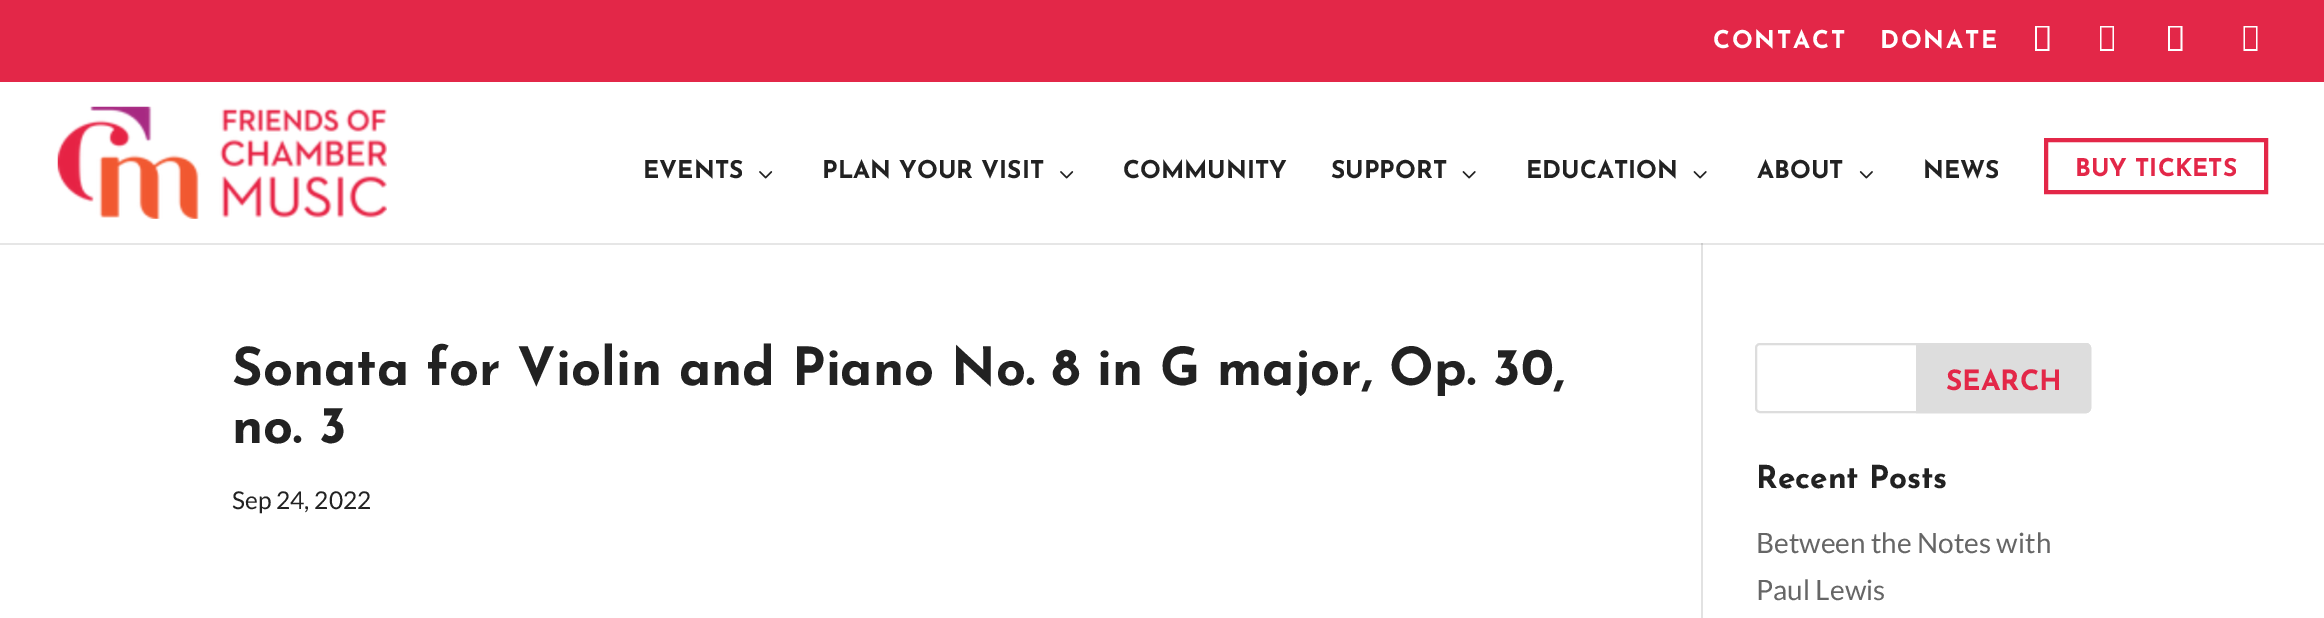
%!PS-Adobe-3.0
%%BoundingBox: 0 0 2324 618
%%LanguageLevel: 3
%%Pages: 1
%%EndComments
%%BeginProlog
/m { moveto } bind def
/l { lineto } bind def
/c { curveto } bind def
/h { closepath } bind def
/f { fill } bind def
/S { stroke } bind def
/q { gsave } bind def
/Q { grestore } bind def
/w { setlinewidth } bind def
/fn { [ exch dup neg 0 0 3 -1 roll 0 0 ] selectfont } def
/tx { moveto show } def
/bx { rectfill } def
/rr { 5 dict begin { /r /h /w /y /x } { exch def } forall
  x r add y moveto x w add y 2 copy h add r arct x w add y h add x 1 index r arct
  x y h add x y r arct x y 2 copy exch w add exch r arct closepath end } def
/im { 5 dict begin { /h /w /y /x /name } { exch def } forall
  gsave x y translate w h scale
  w h 8 [w 0 0 h 0 0] name (r) file false 3 colorimage grestore end } def
%%EndProlog
%%BeginSetup
<< /PageSize [2324 618] >> setpagedevice
%%EndSetup
%%Page: 1 1
0 618 translate 1 -1 scale
4 setmiterlimit
1 setgray
0 0 2324 618 bx
0.902 setgray
0 243 2324 2 bx
0.89 0.153 0.282 setrgbcolor
0 0 2324 82 bx
/JosefinSans-Bold 24.5 fn
1 setgray
1713 48 m 1.75 0 (CONTACT) ashow
1880 48 m 1.75 0 (DONATE) ashow
2035 51 m 2035 26 l 2049.5 26 l 2049.5 51 l h 2037 49 m 2047.5 49 l 2047.5 27.5 l 2037 27.5 l h f
2100 51 m 2100 26 l 2114 26 l 2114 51 l h 2101.5 49 m 2112.5 49 l 2112.5 27.5 l 2101.5 27.5 l h f
2168 51 m 2168 26 l 2182.5 26 l 2182.5 51 l h 2170 49 m 2180.5 49 l 2180.5 27.5 l 2170 27.5 l h f
2243.5 51 m 2243.5 26 l 2257.5 26 l 2257.5 51 l h 2245 49 m 2256 49 l 2256 27.5 l 2245 27.5 l h f
0.886 setgray
1701 242 2 376 bx
1 setgray
1701 242 2 1 bx
(image0.raw) 57 106 330 113 im
0.133 setgray
(EVENTS) 643 178 tx
(image1.raw) 759 171 14 8 im
(PLAN YOUR VISIT) 822 178 tx
(image1.raw) 1060 171 14 8 im
(COMMUNITY) 1123 178 tx
(SUPPORT) 1331 178 tx
(image2.raw) 1462 171 14 8 im
(EDUCATION) 1526 178 tx
(image2.raw) 1693 171 14 8 im
(ABOUT) 1757 178 tx
(image3.raw) 1859 171 14 8 im
(NEWS) 1923 178 tx
0.89 0.153 0.282 setrgbcolor
4 w
2046 140 220 52 rectstroke
(BUY TICKETS) 2075 176 tx
0.796 setgray
1701 243 2 2 bx
/JosefinSans-Bold 52.5 fn
0.133 setgray
(Sonata for Violin and Piano No. 8 in G major, Op. 30,) 232 385 tx
(no. 3) 232 443 tx
/Lato-Regular 24.5 fn
(Sep 24, 2022) 232 509 tx
0.867 setgray
2 w
1756 344 334 68 4 rr S
1917 344 m 2086 344 l 2088 344 2090 346 2090 348 c 2090 408 l 2090 410 2088 412 2086 412 c 1917 412 l h q f Q
S
/JosefinSans-Bold 28 fn
0.89 0.153 0.282 setrgbcolor
(SEARCH) 1946 390 tx
/JosefinSans-Bold 31.5 fn
0.133 setgray
(Recent Posts) 1756 488 tx
/Lato-Regular 28 fn
0.4 setgray
(Between the Notes with) 1756 553 tx
(Paul Lewis) 1756 600 tx
showpage
%%EOF
